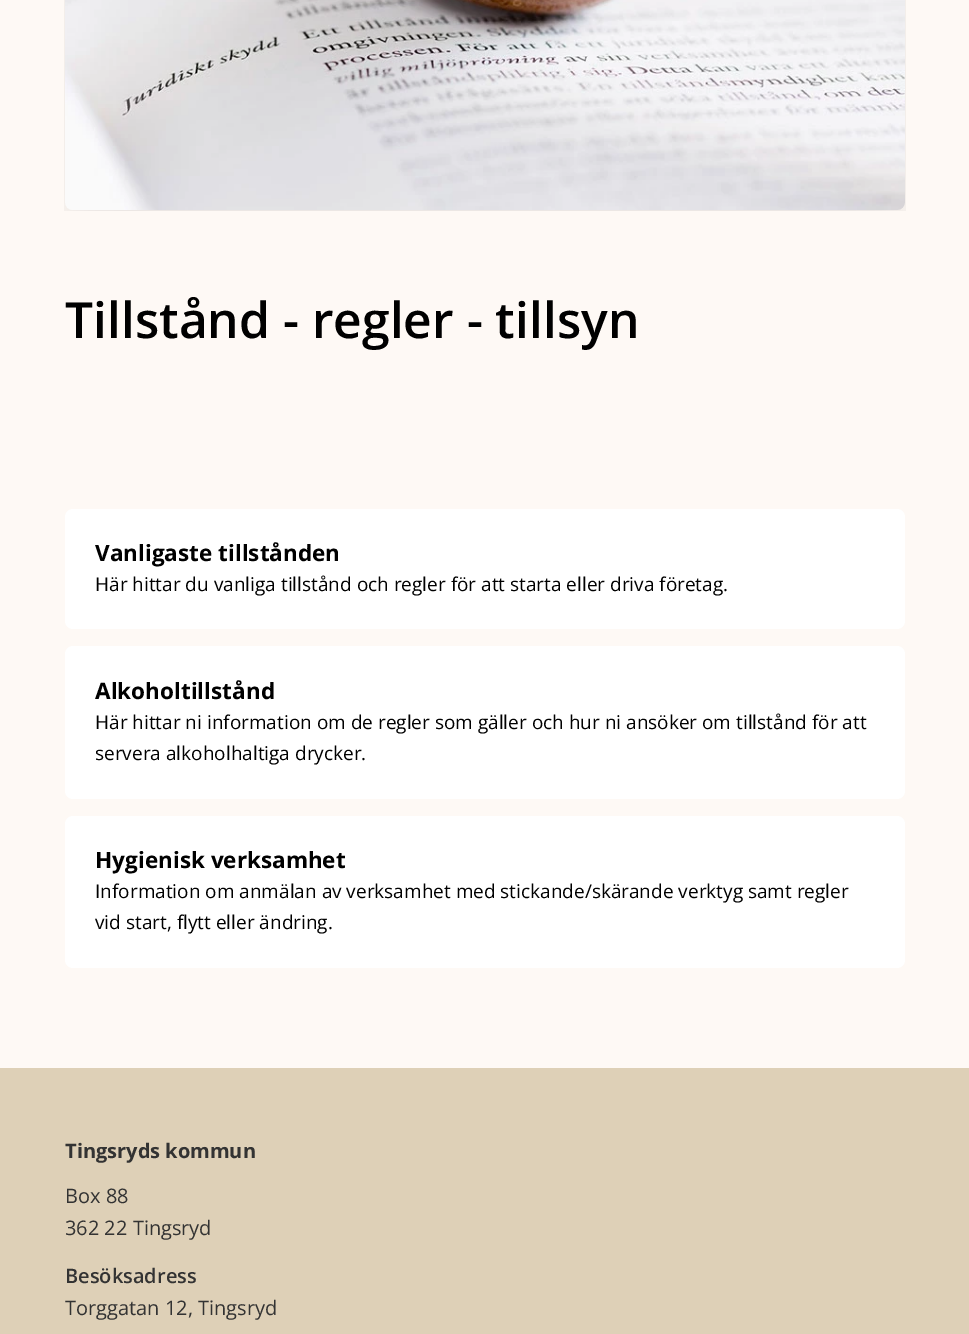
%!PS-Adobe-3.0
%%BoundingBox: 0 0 969 1334
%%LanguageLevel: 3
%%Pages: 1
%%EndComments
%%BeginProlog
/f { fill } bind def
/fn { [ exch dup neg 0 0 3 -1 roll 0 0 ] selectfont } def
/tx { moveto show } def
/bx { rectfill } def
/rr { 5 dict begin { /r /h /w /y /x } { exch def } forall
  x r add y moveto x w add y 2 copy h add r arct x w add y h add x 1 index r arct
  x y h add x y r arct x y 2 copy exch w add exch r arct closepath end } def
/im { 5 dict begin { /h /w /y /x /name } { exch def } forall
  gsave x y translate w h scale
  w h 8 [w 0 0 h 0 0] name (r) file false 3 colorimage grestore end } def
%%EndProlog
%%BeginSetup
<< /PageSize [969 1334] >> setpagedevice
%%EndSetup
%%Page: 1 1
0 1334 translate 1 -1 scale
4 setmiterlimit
0.996 0.976 0.961 setrgbcolor
0 0 969 1334 bx
(image0.raw) 64 0 842 211 im
/OpenSans-SemiBold 49.75 fn
0 setgray
(Tillstånd - regler - tillsyn) 65 338 tx
1 setgray
65 509 840 120 8 rr f
/OpenSans-Bold 22.5 fn
0 setgray
(Vanligaste tillstånden) 95 561 tx
/OpenSans-Regular 19 fn
(Här hittar du vanliga tillstånd och regler för att starta eller driva företag.) 95 591 tx
1 setgray
65 646 840 153 8 rr f
/OpenSans-Bold 22.5 fn
0 setgray
(Alkoholtillstånd) 95 699 tx
/OpenSans-Regular 19 fn
(Här hittar ni information om de regler som gäller och hur ni ansöker om tillstånd för att) 95 729 tx
(servera alkoholhaltiga drycker.) 95 760 tx
1 setgray
65 816 840 152 8 rr f
/OpenSans-Bold 22.5 fn
0 setgray
(Hygienisk verksamhet) 95 868 tx
/OpenSans-Regular 19 fn
(Information om anmälan av verksamhet med stickande/skärande verktyg samt regler) 95 898 tx
(vid start, flytt eller ändring.) 95 929 tx
0.871 0.816 0.718 setrgbcolor
0 1068 969 266 bx
/OpenSans-Bold 20 fn
0.2 setgray
(Tingsryds kommun) 65 1158 tx
/OpenSans-Regular 20 fn
(Box 88) 65 1203 tx
(362 22 Tingsryd) 65 1235 tx
/OpenSans-SemiBold 20 fn
(Besöksadress) 65 1283 tx
/OpenSans-Regular 20 fn
(Torggatan 12, Tingsryd) 65 1315 tx
showpage
%%EOF
